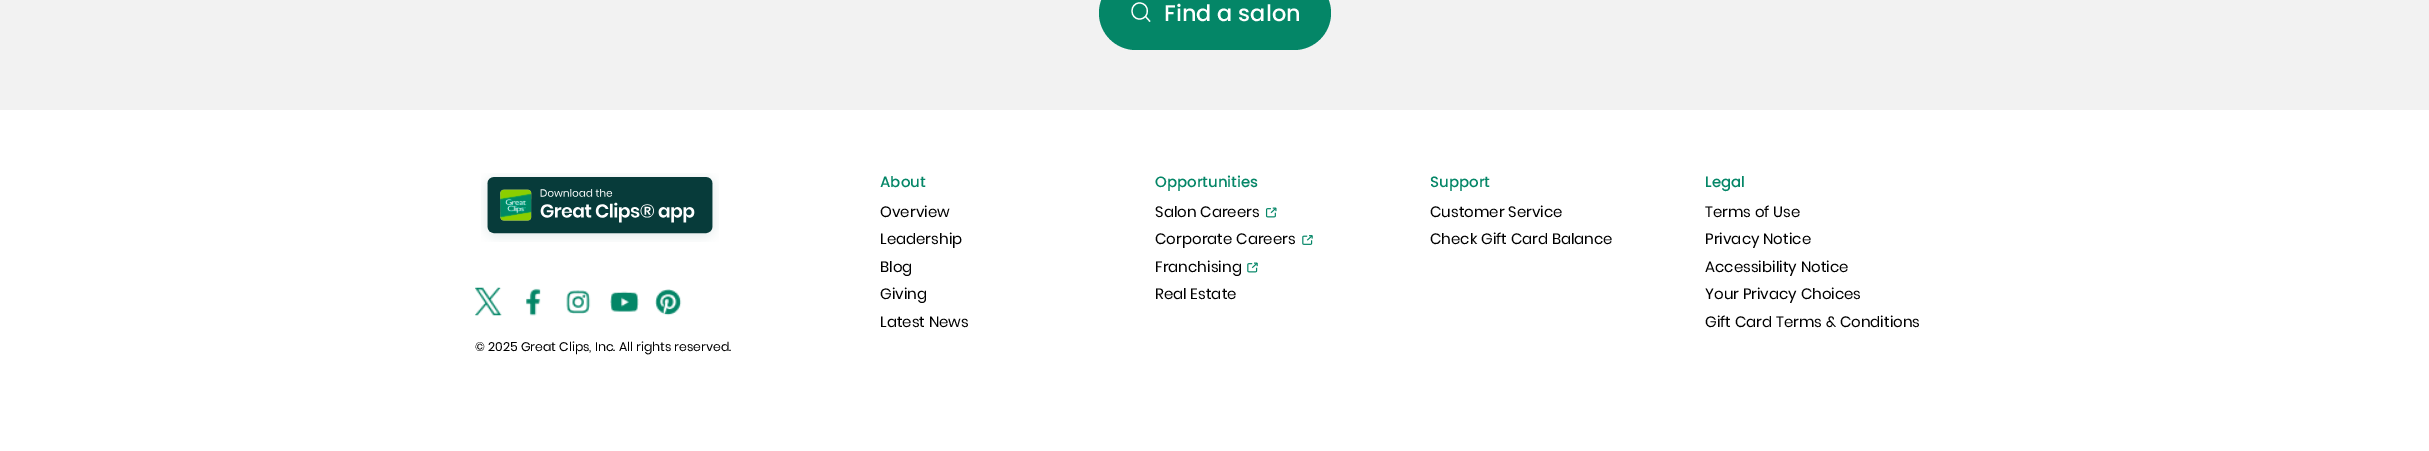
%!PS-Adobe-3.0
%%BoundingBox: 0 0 2429 451
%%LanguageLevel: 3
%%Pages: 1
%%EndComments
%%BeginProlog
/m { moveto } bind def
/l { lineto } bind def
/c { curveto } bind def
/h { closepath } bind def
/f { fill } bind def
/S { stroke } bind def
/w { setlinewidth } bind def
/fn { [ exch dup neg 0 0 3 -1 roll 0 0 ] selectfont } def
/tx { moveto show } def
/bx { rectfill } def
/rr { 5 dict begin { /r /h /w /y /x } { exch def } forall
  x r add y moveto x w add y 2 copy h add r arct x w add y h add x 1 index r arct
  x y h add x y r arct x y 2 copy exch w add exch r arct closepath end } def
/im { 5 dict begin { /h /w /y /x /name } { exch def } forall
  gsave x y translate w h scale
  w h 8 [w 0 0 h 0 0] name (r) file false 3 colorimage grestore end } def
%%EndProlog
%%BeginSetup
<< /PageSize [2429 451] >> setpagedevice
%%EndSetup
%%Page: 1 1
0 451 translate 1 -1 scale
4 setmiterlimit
1 setgray
0 0 2429 451 bx
0.949 setgray
0 0 2429 110 bx
0.016 0.525 0.404 setrgbcolor
1099 -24 232 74 37 rr f
1 setgray
1.2 w
1145.5 16.5 m 1150 21.5 l 1139.5 19 m 1150 19 1150 3 1139.5 3 c 1129.5 3 1129.5 19 1139.5 19 c h S
/Poppins-Medium 22.5 fn
(Find a salon) 1164 21 tx
/Poppins-Medium 15 fn
0.016 0.525 0.404 setrgbcolor
(About) 880 187 tx
/Poppins-Regular 15 fn
0 setgray
(Overview) 880 217 tx
(Leadership) 880 244 tx
(Blog) 880 272 tx
(Giving) 880 299 tx
(Latest News) 880 327 tx
/Poppins-Medium 15 fn
0.016 0.525 0.404 setrgbcolor
(Opportunities) 1155 187 tx
/Poppins-Regular 15 fn
0 setgray
(Salon Careers) 1155 217 tx
(image0.raw) 1265 207 12 11 im
(Corporate Careers) 1155 244 tx
(image1.raw) 1302 235 11 10 im
(Franchising) 1155 272 tx
(image2.raw) 1247 262 11 11 im
(Real Estate) 1155 299 tx
/Poppins-Medium 15 fn
0.016 0.525 0.404 setrgbcolor
(Support) 1430 187 tx
/Poppins-Regular 15 fn
0 setgray
(Customer Service) 1430 217 tx
(Check Gift Card Balance) 1430 244 tx
/Poppins-Medium 15 fn
0.016 0.525 0.404 setrgbcolor
(Legal) 1705 187 tx
/Poppins-Regular 15 fn
0 setgray
(Terms of Use) 1705 217 tx
(Privacy Notice) 1705 244 tx
(Accessibility Notice) 1705 272 tx
(Your Privacy Choices) 1705 299 tx
(Gift Card Terms & Conditions) 1705 327 tx
(image3.raw) 481 173 238 69 im
(image4.raw) 475 287 27 29 im
(image5.raw) 526 288 15 28 im
(image6.raw) 566 290 25 24 im
(image7.raw) 610 291 29 21 im
(image8.raw) 655 289 27 27 im
/Poppins-Regular 12.5 fn
(© 2025 Great Clips, Inc. All rights reserved.) 475 351 tx
showpage
%%EOF
